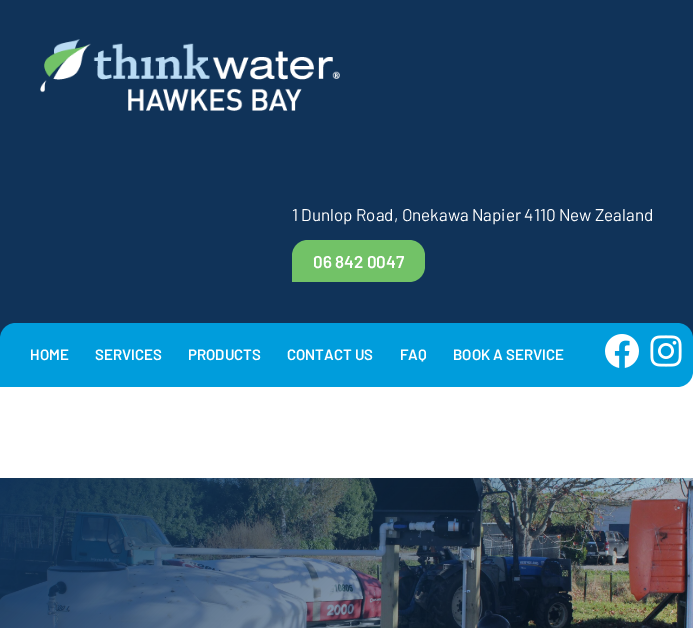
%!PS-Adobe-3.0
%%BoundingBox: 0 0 693 628
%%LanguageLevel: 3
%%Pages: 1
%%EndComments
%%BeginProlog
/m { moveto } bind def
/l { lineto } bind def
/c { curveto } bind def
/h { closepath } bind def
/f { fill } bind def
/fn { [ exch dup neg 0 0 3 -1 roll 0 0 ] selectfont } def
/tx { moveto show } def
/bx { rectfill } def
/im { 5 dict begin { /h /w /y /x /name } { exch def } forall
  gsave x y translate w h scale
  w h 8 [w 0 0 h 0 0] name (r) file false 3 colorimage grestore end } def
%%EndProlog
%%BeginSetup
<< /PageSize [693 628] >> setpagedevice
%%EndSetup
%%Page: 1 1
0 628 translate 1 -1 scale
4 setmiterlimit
1 setgray
0 0 693 628 bx
0.063 0.2 0.349 setrgbcolor
0 0 693 339 bx
(image0.raw) 40 39 300 72 im
/Barlow-Regular 17 fn
1 setgray
(1 Dunlop Road, Onekawa Napier 4110 New Zealand) 292 221 tx
0.447 0.761 0.404 setrgbcolor
308 240 m 409 240 l 418 240 425 247 425 256 c 425 266 l 425 275 418 282 409 282 c 292 282 l 292 256 l 292 247 299 240 308 240 c h f
/Barlow-SemiBold 17 fn
1 setgray
(06 842 0047) 313 268 tx
0 0.616 0.863 setrgbcolor
16 323 m 677 323 l 686 323 693 330 693 339 c 693 371 l 693 380 686 387 677 387 c 0 387 l 0 339 l 0 330 7 323 16 323 c h f
/Barlow-SemiBold 15 fn
1 setgray
(HOME) 30 360 tx
(SERVICES) 95 360 tx
(PRODUCTS) 188 360 tx
(CONTACT US) 287 360 tx
(FAQ) 400 360 tx
(BOOK A SERVICE) 453 360 tx
(image1.raw) 605 334 34 34 im
(image2.raw) 650 335 32 32 im
(image3.raw) 0 478 693 150 im
showpage
%%EOF
